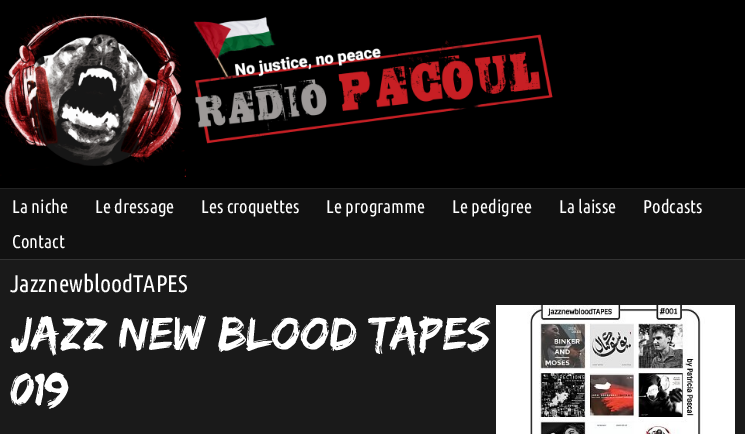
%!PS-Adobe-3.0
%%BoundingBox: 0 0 745 434
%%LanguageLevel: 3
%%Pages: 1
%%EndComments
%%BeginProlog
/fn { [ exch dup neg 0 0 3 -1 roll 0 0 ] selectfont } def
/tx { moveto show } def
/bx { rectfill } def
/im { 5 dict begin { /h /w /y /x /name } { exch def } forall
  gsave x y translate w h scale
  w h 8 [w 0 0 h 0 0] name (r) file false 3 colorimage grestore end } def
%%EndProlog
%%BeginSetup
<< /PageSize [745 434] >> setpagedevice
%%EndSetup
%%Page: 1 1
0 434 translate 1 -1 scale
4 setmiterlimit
0.102 setgray
0 0 745 434 bx
0 setgray
0 0 745 188 bx
(image0.raw) 0 11 186 166 im
(image1.raw) 193 16 360 128 im
0.067 setgray
0 189 745 70 bx
0.133 setgray
0 188 745 1 bx
0.2 setgray
0 259 745 1 bx
/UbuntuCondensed-Regular 18.5 fn
1 setgray
(La niche) 12 213 tx
(Le dressage) 95 213 tx
(Les croquettes) 201 213 tx
(Le programme) 326 213 tx
(Le pedigree) 452 213 tx
(La laisse) 559 213 tx
(Podcasts) 643 213 tx
(Contact) 12 248 tx
/UbuntuCondensed-Regular 24 fn
(JazznewbloodTAPES) 10 292 tx
/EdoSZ-Regular 48 fn
(Jazz New Blood Tapes) 10 349 tx
(019) 10 404 tx
(image2.raw) 496 305 239 129 im
showpage
%%EOF
